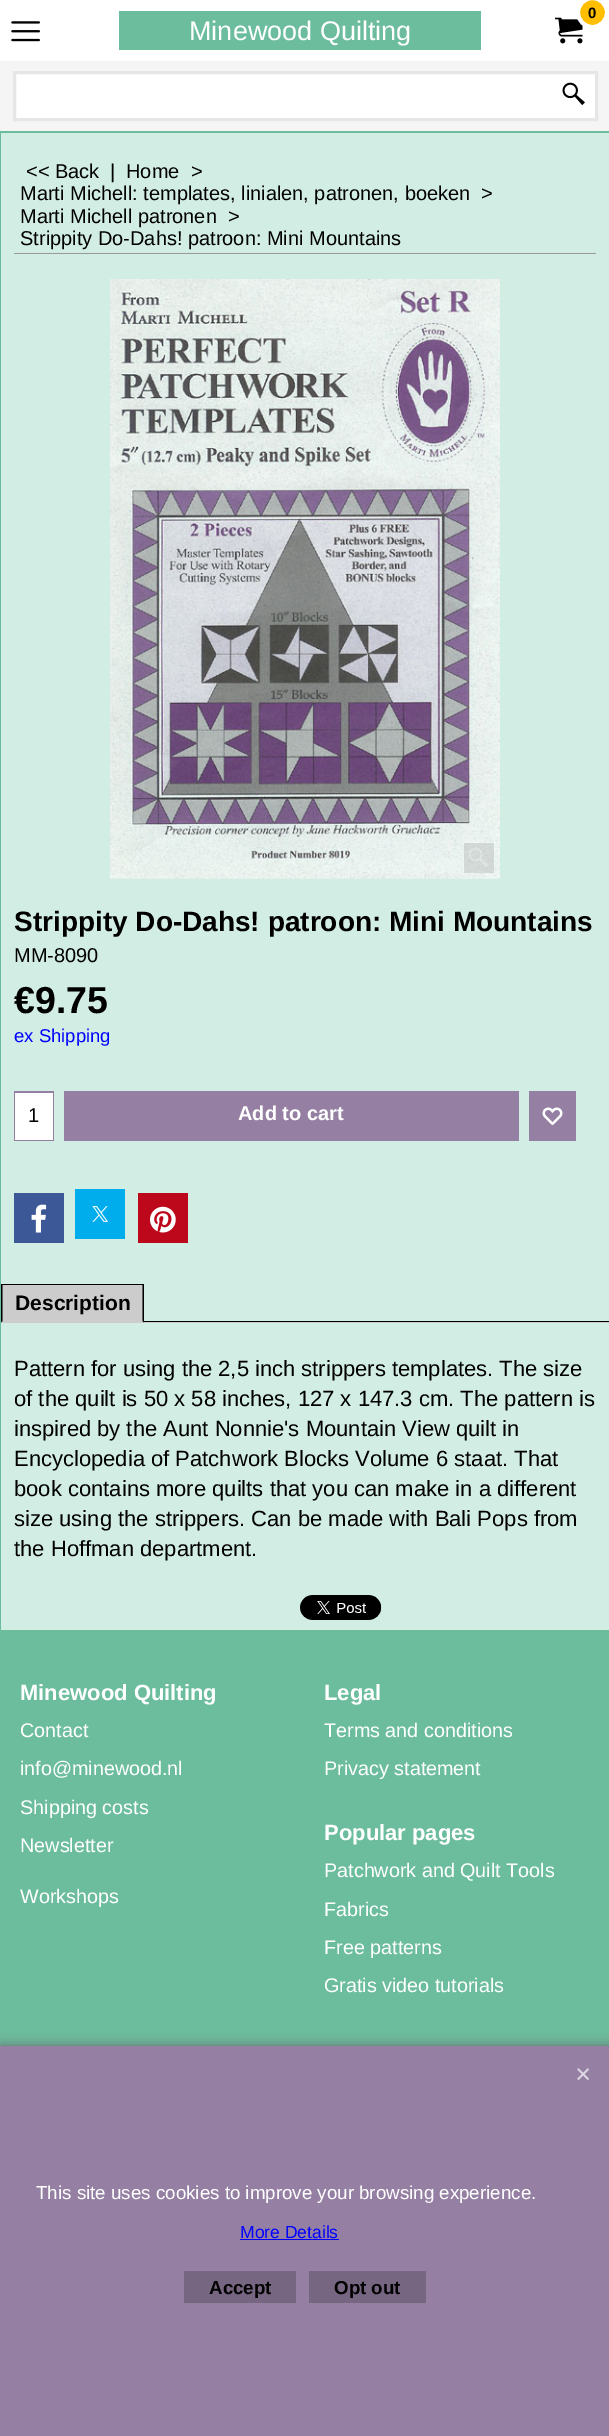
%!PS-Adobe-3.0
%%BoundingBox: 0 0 609 2436
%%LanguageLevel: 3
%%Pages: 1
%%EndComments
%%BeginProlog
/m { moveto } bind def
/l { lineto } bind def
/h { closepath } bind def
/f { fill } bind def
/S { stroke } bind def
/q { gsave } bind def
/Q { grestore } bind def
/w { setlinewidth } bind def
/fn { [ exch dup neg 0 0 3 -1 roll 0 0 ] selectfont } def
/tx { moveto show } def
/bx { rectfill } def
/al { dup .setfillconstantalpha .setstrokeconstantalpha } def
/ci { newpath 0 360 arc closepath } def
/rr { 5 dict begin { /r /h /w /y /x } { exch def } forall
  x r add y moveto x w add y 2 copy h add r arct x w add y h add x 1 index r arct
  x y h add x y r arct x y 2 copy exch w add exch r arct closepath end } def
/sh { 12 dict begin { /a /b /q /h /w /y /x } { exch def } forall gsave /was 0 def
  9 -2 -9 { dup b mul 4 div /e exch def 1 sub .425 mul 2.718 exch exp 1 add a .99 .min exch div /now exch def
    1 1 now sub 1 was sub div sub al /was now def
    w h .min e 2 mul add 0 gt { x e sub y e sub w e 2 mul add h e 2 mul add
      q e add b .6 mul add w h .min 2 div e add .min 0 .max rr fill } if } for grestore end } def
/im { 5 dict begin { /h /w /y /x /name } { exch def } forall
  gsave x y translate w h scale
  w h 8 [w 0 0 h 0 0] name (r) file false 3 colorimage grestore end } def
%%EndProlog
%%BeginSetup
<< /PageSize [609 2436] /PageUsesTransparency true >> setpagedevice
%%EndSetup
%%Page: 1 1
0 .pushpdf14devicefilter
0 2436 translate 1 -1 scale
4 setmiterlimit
0.424 0.741 0.62 setrgbcolor
0 0 609 2436 bx
1 setgray
0 0 609 61 bx
(image0.raw) 555 17 28 27 im
1 0.749 0 setrgbcolor
592.5 12.5 14.5 ci q f Q
1 setgray
4 w
S
/LiberationSans-Bold 15 fn
0 setgray
(0) 588 18 tx
(image1.raw) 11 21 29 21 im
0.424 0.741 0.62 setrgbcolor
119 11 362 39 bx
/LiberationSans-Regular 27 fn
1 setgray
(Minewood Quilting) 189 40 tx
0.961 0.961 0.965 setrgbcolor
0 61 609 70 bx
1 setgray
14.5 72.5 m 596.5 72.5 l 596.5 119.5 l 14.5 119.5 l h q f Q
0.902 setgray
3 w
S
(image2.raw) 562 82 23 24 im
0.824 0.929 0.89 setrgbcolor
1 133 608 1497 bx
0.6 setgray
14 253 582 1 bx
/LiberationSans-Regular 20 fn
0 setgray
(<< Back) 26 178 tx
(|) 110 178 tx
(Home) 126 178 tx
(>) 191 178 tx
(Marti Michell: templates, linialen, patronen, boeken) 20 200 tx
(>) 481 200 tx
(Marti Michell patronen) 20 223 tx
(>) 228 223 tx
(Strippity Do-Dahs! patroon: Mini Mountains) 20 245 tx
(image3.raw) 110 279 390 600 im
0.3 al
0.6 setgray
464 843 30 30 bx
1 al
(image4.raw) 469 847 20 20 im
/LiberationSans-Bold 28 fn
0 setgray
(Strippity Do-Dahs! patroon: Mini Mountains) 14 931 tx
/LiberationSans-Regular 20 fn
(MM-8090) 14 962 tx
/LiberationSans-Bold 37.5 fn
(€9.75) 14 1013 tx
/LiberationSans-Regular 18.5 fn
0 0 1 setrgbcolor
(ex Shipping) 14 1042 tx
0.584 0.502 0.639 setrgbcolor
14 1091 40 50 bx
1 setgray
15 1093 38 47 bx
/LiberationSans-Regular 20 fn
0 setgray
(1) 28 1122 tx
0.584 0.502 0.639 setrgbcolor
64 1091 455 50 bx
/LiberationSans-Bold 20 fn
1 setgray
(Add to cart) 238 1120 tx
0.584 0.502 0.639 setrgbcolor
529 1091 47 50 bx
(image5.raw) 542 1107 21 18 im
0.235 0.345 0.592 setrgbcolor
14 1193 50 50 bx
(image6.raw) 31 1204 16 29 im
0 0.678 0.925 setrgbcolor
75 1189 50 50 bx
(image7.raw) 92 1206 16 16 im
0.741 0.031 0.11 setrgbcolor
138 1193 50 50 bx
(image8.raw) 150 1206 26 27 im
0.8 setgray
1 1285 143 38 bx
0 setgray
1 1284 143 1 bx
144 1284 m 144 1322.5 l 142.5 1321 l 142.5 1285 l h f
1 1322.5 m 1 1284 l 2.5 1285 l 2.5 1321 l h f
/LiberationSans-Bold 21 fn
(Description) 15 1310 tx
0.8 setgray
144 1322 465 1 bx
0 setgray
144 1321 465 1 bx
/LiberationSans-Regular 22 fn
(Pattern for using the 2,5 inch strippers templates. The size) 14 1376 tx
(of the quilt is 50 x 58 inches, 127 x 147.3 cm. The pattern is) 14 1406 tx
(inspired by the Aunt Nonnie's Mountain View quilt in) 14 1436 tx
(Encyclopedia of Patchwork Blocks Volume 6 staat. That) 14 1466 tx
(book contains more quilts that you can make in a different) 14 1496 tx
(size using the strippers. Can be made with Bali Pops from) 14 1526 tx
(the Hoffman department.) 14 1556 tx
(image9.raw) 300 1595 82 25 im
/LiberationSans-Bold 22 fn
1 setgray
(Minewood Quilting) 20 1700 tx
/LiberationSans-Regular 19.75 fn
(Contact) 20 1737 tx
(info@minewood.nl) 20 1775 tx
(Shipping costs) 20 1814 tx
(Newsletter) 20 1852 tx
/LiberationSans-Bold 22 fn
(Legal) 324 1700 tx
/LiberationSans-Regular 19.75 fn
(Terms and conditions) 324 1737 tx
(Privacy statement) 324 1775 tx
(Workshops) 20 1903 tx
/LiberationSans-Bold 22 fn
(Popular pages) 324 1840 tx
/LiberationSans-Regular 19.75 fn
(Patchwork and Quilt Tools) 324 1877 tx
(Fabrics) 324 1916 tx
(Free patterns) 324 1954 tx
(Gratis video tutorials) 324 1992 tx
0.4 setgray
0 2046 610 390 0 6 1 sh
0.584 0.502 0.639 setrgbcolor
0 2046 609 390 bx
(image10.raw) 577 2068 12 12 im
/LiberationSans-Regular 18.75 fn
1 setgray
(This site uses cookies to improve your browsing experience.) 36 2199 tx
/LiberationSans-Regular 17.5 fn
0 0 1 setrgbcolor
(More Details) 240 2238 tx
240 2239 99 1 bx
0.467 0.4 0.51 setrgbcolor
184 2271 112 32 bx
/LiberationSans-Bold 18.75 fn
0 setgray
(Accept) 209 2294 tx
0.467 0.4 0.51 setrgbcolor
309 2271 117 32 bx
0 setgray
(Opt out) 334 2294 tx
.poppdf14devicefilter showpage
%%EOF
